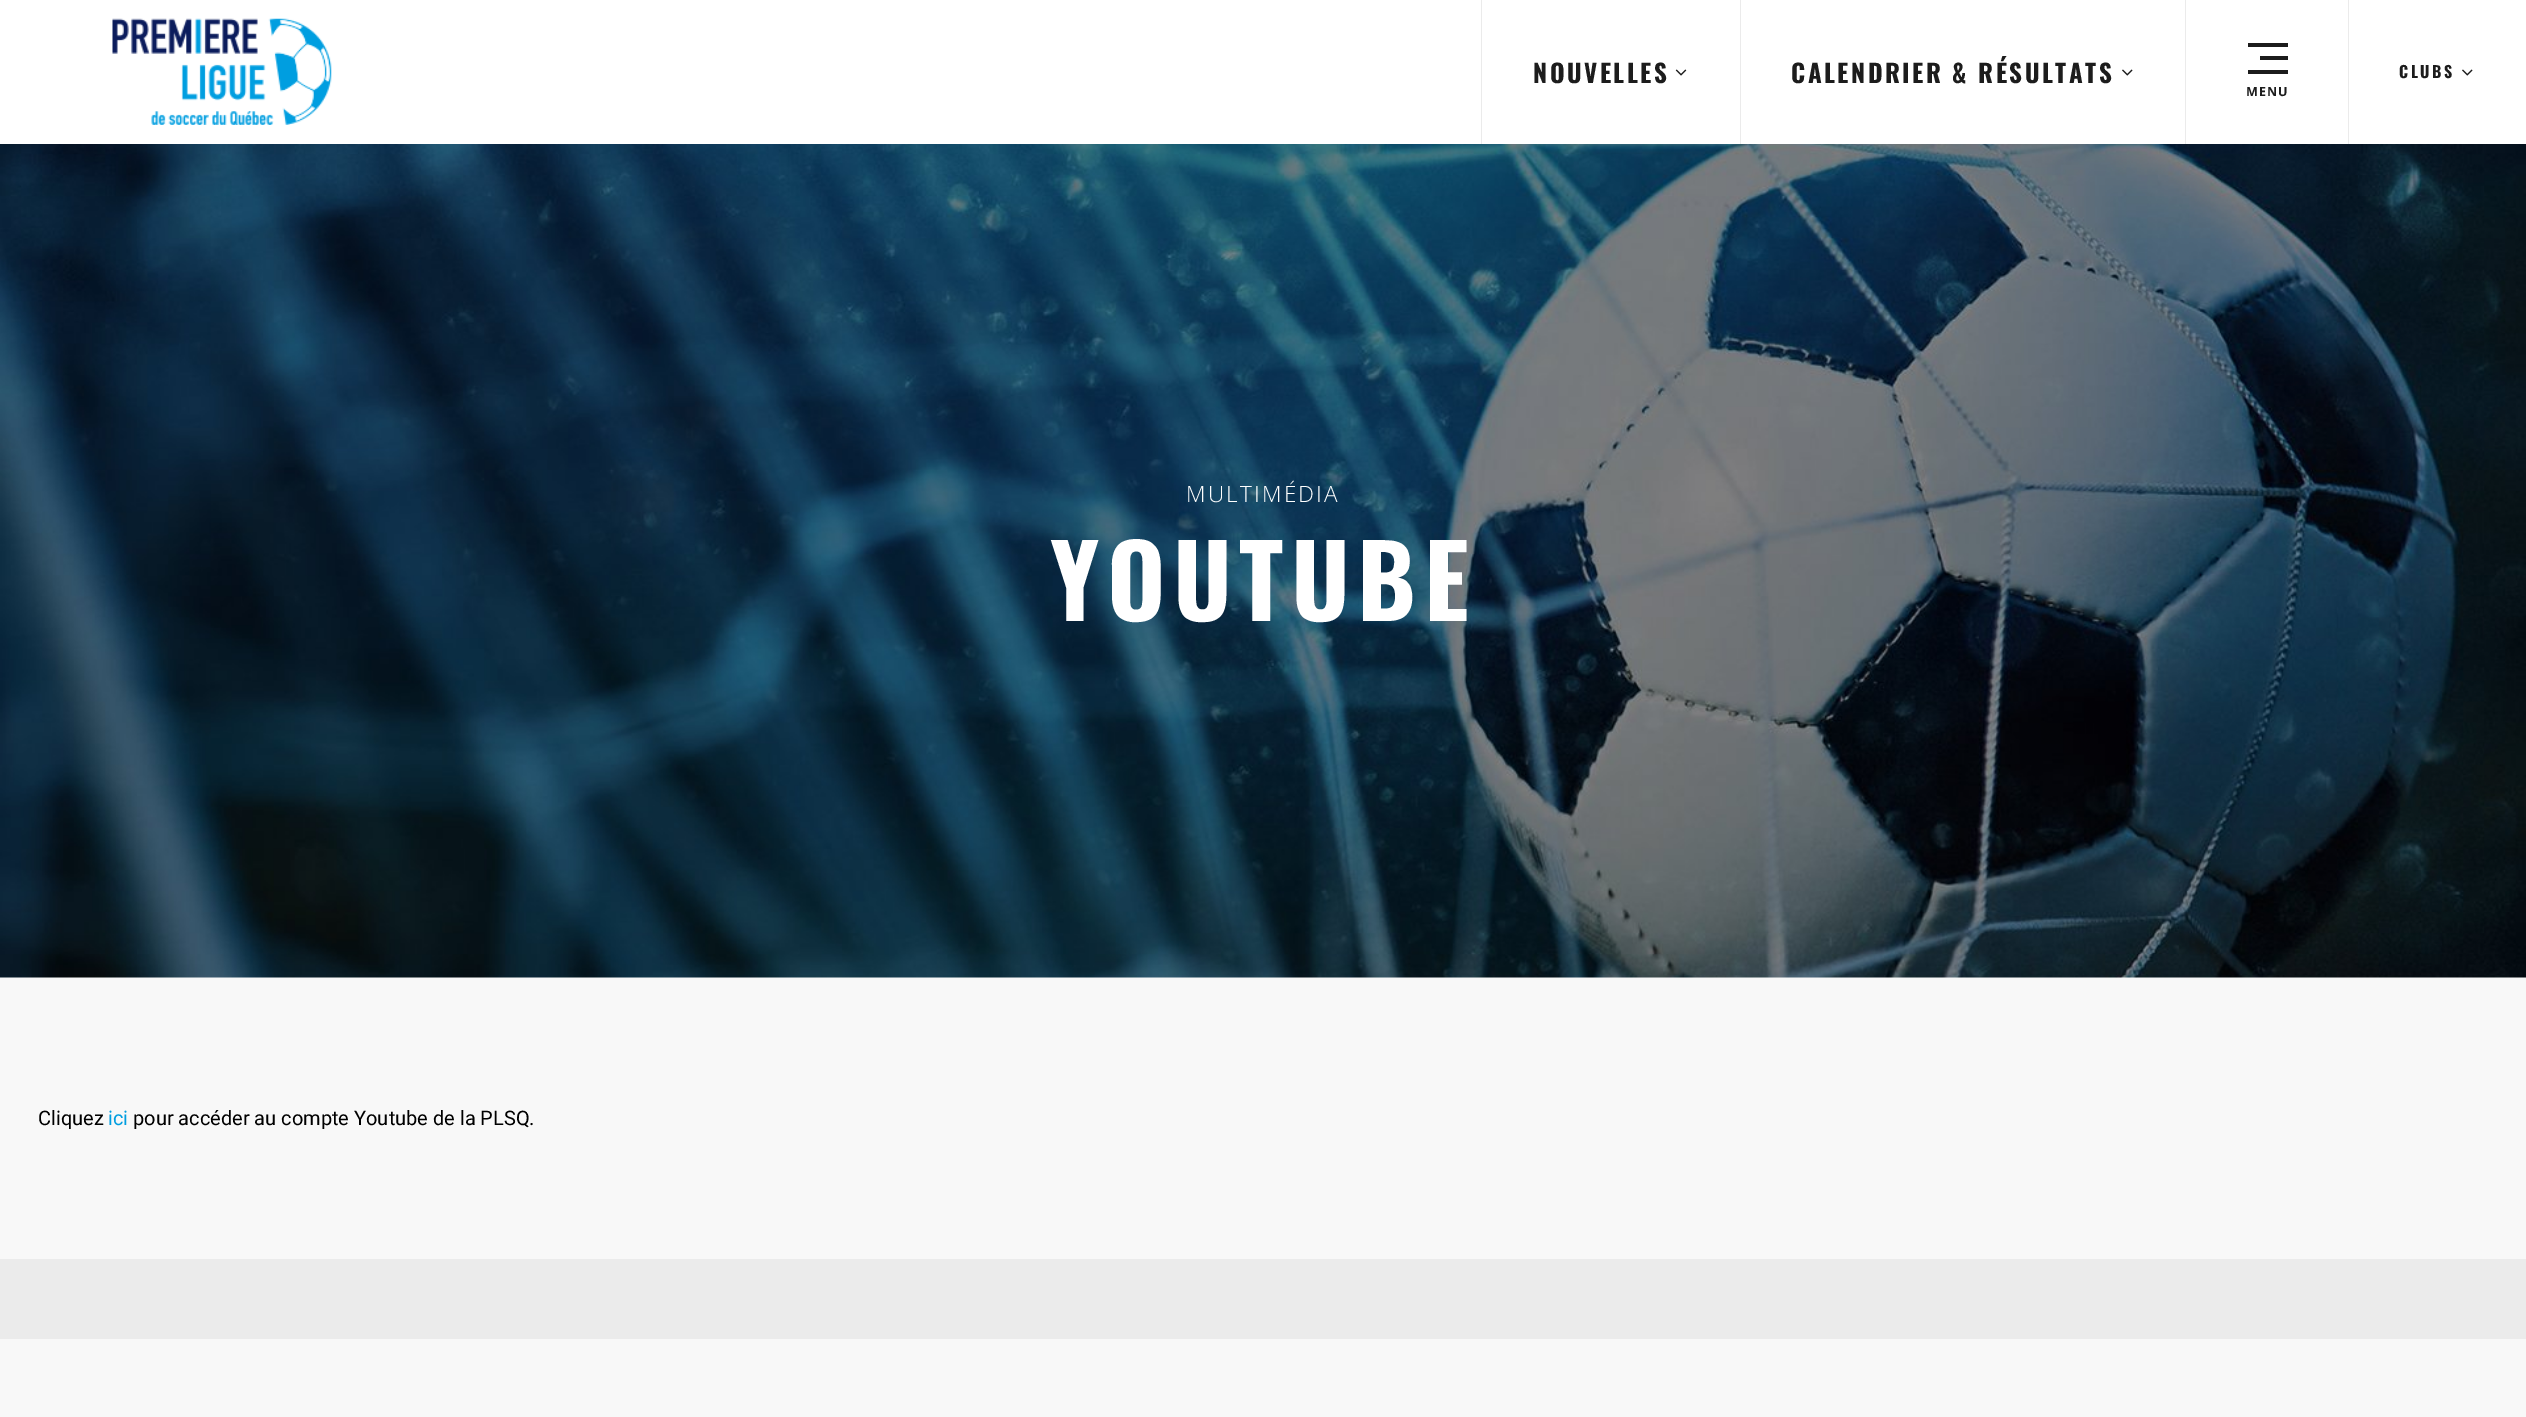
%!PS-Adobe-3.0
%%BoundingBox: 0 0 2526 1417
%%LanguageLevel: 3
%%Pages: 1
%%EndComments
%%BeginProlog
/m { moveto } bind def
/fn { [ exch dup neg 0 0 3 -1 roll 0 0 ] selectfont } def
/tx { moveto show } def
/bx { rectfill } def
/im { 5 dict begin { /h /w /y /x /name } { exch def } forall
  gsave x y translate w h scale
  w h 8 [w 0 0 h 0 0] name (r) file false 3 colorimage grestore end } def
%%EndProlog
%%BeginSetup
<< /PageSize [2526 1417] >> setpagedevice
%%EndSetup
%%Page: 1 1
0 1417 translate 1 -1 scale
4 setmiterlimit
0.973 setgray
0 0 2526 1417 bx
1 setgray
0 0 2526 144 bx
(image0.raw) 112 18 220 107 im
0.922 setgray
1481 0 1 144 bx
/Oswald-Bold 25 fn
0.11 setgray
1533 83 m 2.5 0 (NOUVELLES) ashow
(image1.raw) 1675 69 12 7 im
0.922 setgray
1740 0 1 144 bx
0.11 setgray
1791 83 m 2.5 0 (CALENDRIER & RÉSULTATS) ashow
(image2.raw) 2122 69 11 7 im
0.922 setgray
2348 0 1 144 bx
/Oswald-Bold 16 fn
0.11 setgray
2399 78 m 2.5 0 (CLUBS) ashow
(image2.raw) 2462 69 11 7 im
0.922 setgray
2185 0 1 144 bx
0.11 setgray
2248 43 40 4 bx
2260 56 28 4 bx
2248 70 40 4 bx
/OpenSans-Bold 12.5 fn
2246 96 m 1 0 (MENU) ashow
(image3.raw) 0 144 2526 834 im
/OpenSans-Light 22.5 fn
1 setgray
1186 502 m 2.25 0 (MULTIMÉDIA) ashow
/Oswald-Bold 100 fn
1050 621 m 7.5 0 (YOUTUBE) ashow
/Roboto-Regular 20 fn
0 setgray
(Cliquez) 38 1125 tx
0 0.62 0.878 setrgbcolor
(ici) 108 1125 tx
0 setgray
(pour accéder au compte Youtube de la PLSQ.) 133 1125 tx
0.922 setgray
0 1259 2526 80 bx
showpage
%%EOF
